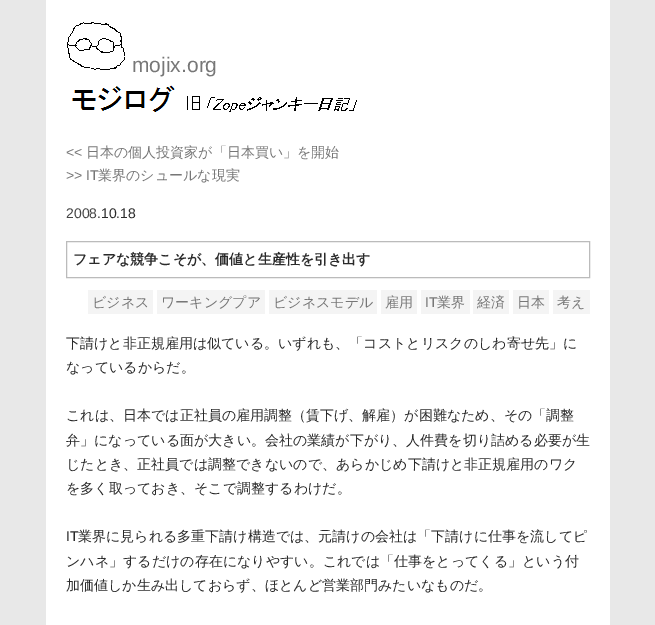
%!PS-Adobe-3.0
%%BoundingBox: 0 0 655 625
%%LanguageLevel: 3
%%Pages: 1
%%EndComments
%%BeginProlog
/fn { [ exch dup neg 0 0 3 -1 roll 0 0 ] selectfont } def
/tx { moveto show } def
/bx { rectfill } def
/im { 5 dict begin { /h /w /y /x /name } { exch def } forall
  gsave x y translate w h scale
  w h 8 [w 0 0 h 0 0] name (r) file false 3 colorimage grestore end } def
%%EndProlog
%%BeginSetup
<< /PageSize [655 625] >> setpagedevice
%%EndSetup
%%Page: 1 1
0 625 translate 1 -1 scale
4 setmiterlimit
0.91 setgray
0 0 655 625 bx
1 setgray
46 0 564 625 bx
(image0.raw) 67 22 58 48 im
/LiberationSans-Regular 21 fn
0.467 setgray
(mojix.org) 132 72 tx
(image1.raw) 72 85 103 27 im
(image2.raw) 187 96 170 16 im
/LiberationSans-Regular 14 fn
(<<) 66 157 tx
/WenQuanYiZenHei-Medium 14 fn
(日本の個人投資家が「日本買い」を開始) 86 157 tx
/LiberationSans-Regular 14 fn
(>> IT) 66 180 tx
/WenQuanYiZenHei-Medium 14 fn
(業界のシュールな現実) 98 180 tx
/LiberationSans-Regular 14 fn
0.267 setgray
(2008) 66 218 tx
0.165 setgray
(.10.18) 97 218 tx
0.733 setgray
66.5 241.5 523 36 rectstroke
/WenQuanYiZenHei-Bold 14 fn
0.165 setgray
(フェアな競争こそが、価値と生産性を引き出す) 73 264 tx
0.957 setgray
88 290 65 24 bx
/WenQuanYiZenHei-Medium 14 fn
0.467 setgray
(ビジネス) 92 307 tx
0.957 setgray
157 290 108 24 bx
0.467 setgray
(ワーキングプア) 161 307 tx
0.957 setgray
269 290 108 24 bx
0.467 setgray
(ビジネスモデル) 273 307 tx
0.957 setgray
381 290 36 24 bx
0.467 setgray
(雇用) 385 307 tx
0.957 setgray
421 290 49 24 bx
/LiberationSans-Regular 14 fn
0.467 setgray
(IT) 425 307 tx
/WenQuanYiZenHei-Medium 14 fn
(業界) 437 307 tx
0.957 setgray
473 290 36 24 bx
0.467 setgray
(経済) 477 307 tx
0.957 setgray
513 290 36 24 bx
0.467 setgray
(日本) 517 307 tx
0.957 setgray
553 290 37 24 bx
0.467 setgray
(考え) 557 307 tx
0.165 setgray
(下請けと非正規雇用は似ている。いずれも、「コストとリスクのしわ寄せ先」に) 66 348 tx
(なっているからだ。) 66 372 tx
(これは、日本では正社員の雇用調整（賃下げ、解雇）が困難なため、その「調整) 66 420 tx
(弁」になっている面が大きい。会社の業績が下がり、人件費を切り詰める必要が生) 66 445 tx
(じたとき、正社員では調整できないので、あらかじめ下請けと非正規雇用のワク) 66 469 tx
(を多く取っておき、そこで調整するわけだ。) 66 493 tx
/LiberationSans-Regular 14 fn
(IT) 66 541 tx
/WenQuanYiZenHei-Medium 14 fn
(業界に見られる多重下請け構造では、元請けの会社は「下請けに仕事を流してピ) 78 541 tx
(ンハネ」するだけの存在になりやすい。これでは「仕事をとってくる」という付) 66 566 tx
(加価値しか生み出しておらず、ほとんど営業部門みたいなものだ。) 66 590 tx
showpage
%%EOF
